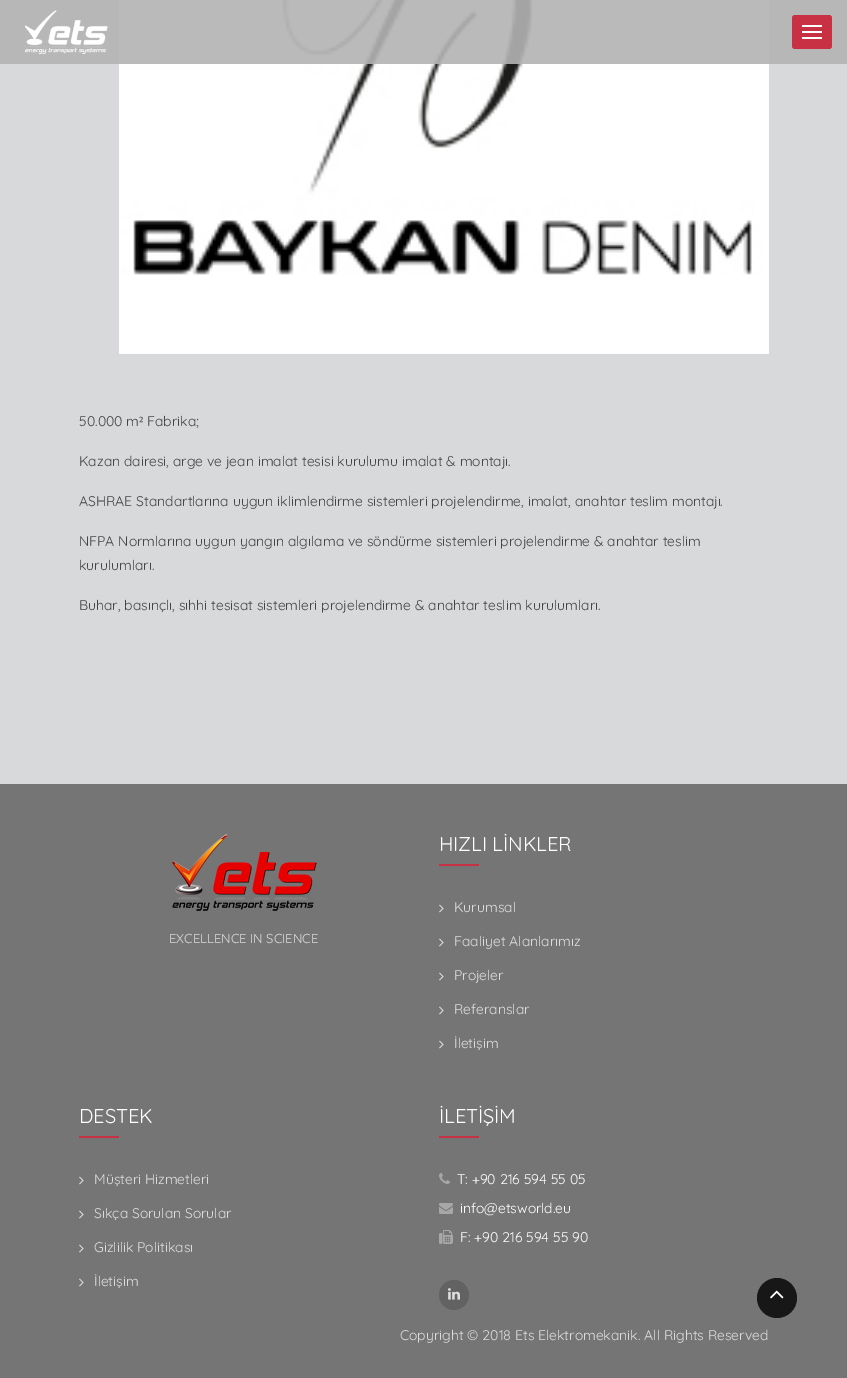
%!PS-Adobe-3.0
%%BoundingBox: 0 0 847 1378
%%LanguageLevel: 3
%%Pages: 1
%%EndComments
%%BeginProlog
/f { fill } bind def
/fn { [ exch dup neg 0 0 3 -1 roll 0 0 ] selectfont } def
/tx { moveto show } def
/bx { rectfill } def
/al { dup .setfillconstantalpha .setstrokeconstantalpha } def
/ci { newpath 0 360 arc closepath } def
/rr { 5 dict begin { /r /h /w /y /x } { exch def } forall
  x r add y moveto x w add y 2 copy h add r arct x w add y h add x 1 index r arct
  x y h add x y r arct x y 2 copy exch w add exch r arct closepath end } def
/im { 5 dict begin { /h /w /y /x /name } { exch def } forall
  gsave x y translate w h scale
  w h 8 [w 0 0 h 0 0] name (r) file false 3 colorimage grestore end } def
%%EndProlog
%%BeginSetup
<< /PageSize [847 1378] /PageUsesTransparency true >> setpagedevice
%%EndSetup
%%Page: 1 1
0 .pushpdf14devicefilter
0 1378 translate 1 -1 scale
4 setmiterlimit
0.847 0.851 0.859 setrgbcolor
0 0 847 1378 bx
(image1.raw) 119 0 650 354 im
0.9 al
0.702 setgray
0 0 847 64 bx
1 al
(image0.raw) 25 10 83 44 im
0.78 0.192 0.263 setrgbcolor
792 15 40 34 3 rr f
1 setgray
802 25 20 2 bx
802 31 20 2 bx
802 37 20 2 bx
/Quicksand-Regular 14 fn
0.267 setgray
(50.000 m) 79 426 tx
/LiberationSerif-Regular 14 fn
(²) 139 426 tx
/Quicksand-Regular 14 fn
(Fabrika;) 147 426 tx
(Kazan dairesi, arge ve jean imalat tesisi kurulumu imalat & montajı.) 79 466 tx
(ASHRAE Standartlarına uygun iklimlendirme sistemleri projelendirme, imalat, anahtar teslim montajı.) 79 506 tx
(NFPA Normlarına uygun yangın algılama ve söndürme sistemleri projelendirme & anahtar teslim) 79 546 tx
(kurulumları.) 79 570 tx
(Buhar, basınçlı, sıhhi tesisat sistemleri projelendirme & anahtar teslim kurulumları.) 79 610 tx
0.459 setgray
0 784 847 594 bx
(image2.raw) 172 834 145 77 im
/Quicksand-Regular 13 fn
0.867 setgray
(EXCELLENCE IN SCIENCE) 169 943 tx
/Quicksand-Regular 20 fn
1 setgray
(HIZLI LİNKLER) 439 851 tx
0.78 0.192 0.263 setrgbcolor
439 864 40 2 bx
(image3.raw) 439 904 5 9 im
/Quicksand-Regular 14 fn
0.867 setgray
(Kurumsal) 454 912 tx
(image3.raw) 439 938 5 9 im
(Faaliyet Alanlarımız) 454 946 tx
(image3.raw) 439 972 5 9 im
(Projeler) 454 980 tx
(image3.raw) 439 1006 5 9 im
(Referanslar) 454 1014 tx
(image3.raw) 439 1040 5 9 im
(İletişim) 454 1048 tx
/Quicksand-Regular 20 fn
1 setgray
(DESTEK) 79 1123 tx
0.78 0.192 0.263 setrgbcolor
79 1136 40 2 bx
(image3.raw) 79 1176 5 9 im
/Quicksand-Regular 14 fn
0.867 setgray
(Müşteri Hizmetleri) 94 1184 tx
(image3.raw) 79 1210 5 9 im
(Sıkça Sorulan Sorular) 94 1218 tx
(image3.raw) 79 1244 5 9 im
(Gizlilik Politikası) 94 1252 tx
(image3.raw) 79 1278 5 9 im
(İletişim) 94 1286 tx
/Quicksand-Regular 20 fn
1 setgray
(İLETİŞİM) 439 1123 tx
0.78 0.192 0.263 setrgbcolor
439 1136 40 2 bx
(image4.raw) 439 1173 11 11 im
/Quicksand-Regular 14 fn
1 setgray
(T: +90 216 594 55 05) 457 1184 tx
(image5.raw) 439 1203 14 11 im
(info@etsworld.eu) 460 1213 tx
(image6.raw) 439 1230 14 14 im
(F: +90 216 594 55 90) 460 1242 tx
0.384 setgray
454 1295 15 ci f
(image7.raw) 448 1288 12 12 im
0.867 setgray
(Copyright © 2018 Ets Elektromekanik. All Rights Reserved) 400 1340 tx
0.09 setgray
777 1298 20 ci f
(image8.raw) 770 1290 14 9 im
.poppdf14devicefilter showpage
%%EOF
